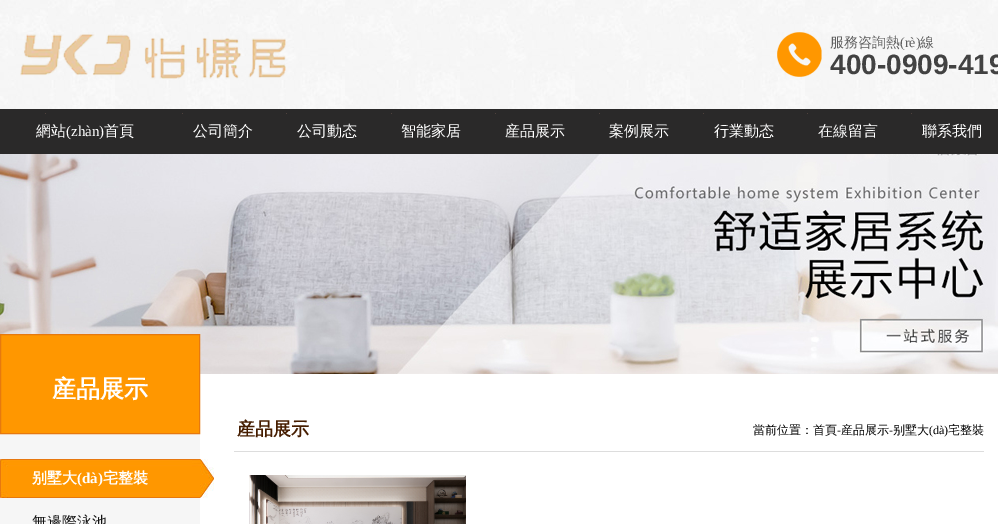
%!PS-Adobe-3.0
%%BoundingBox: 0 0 998 524
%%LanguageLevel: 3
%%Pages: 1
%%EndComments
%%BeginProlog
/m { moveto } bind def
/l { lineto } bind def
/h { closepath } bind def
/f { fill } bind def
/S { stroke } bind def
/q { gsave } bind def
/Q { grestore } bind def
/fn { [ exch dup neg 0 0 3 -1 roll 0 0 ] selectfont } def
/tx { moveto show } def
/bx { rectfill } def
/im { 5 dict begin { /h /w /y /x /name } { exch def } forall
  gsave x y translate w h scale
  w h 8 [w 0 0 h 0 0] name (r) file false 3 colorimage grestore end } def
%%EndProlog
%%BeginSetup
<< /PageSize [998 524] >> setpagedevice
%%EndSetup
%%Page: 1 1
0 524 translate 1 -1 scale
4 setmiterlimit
1 setgray
0 0 998 524 bx
(image0.raw) 0 0 998 109 im
(image1.raw) 20 34 266 45 im
(image2.raw) 777 32 45 45 im
/WenQuanYiZenHei-Medium 14 fn
0.376 setgray
(服務咨詢熱) 830 47 tx
/LiberationSerif-Regular 14 fn
(\(rè\)) 900 47 tx
/WenQuanYiZenHei-Medium 14 fn
(線) 920 47 tx
/LiberationSans-Bold 28 fn
0.259 setgray
(400-0909-419) 830 74 tx
0.165 0.161 0.161 setrgbcolor
0 109 998 45 bx
0.306 0.255 0.235 setrgbcolor
45 113 1 1 bx
/WenQuanYiZenHei-Medium 15 fn
1 setgray
(網站) 36 136 tx
/LiberationSerif-Regular 15 fn
(\(zhàn\)) 66 136 tx
/WenQuanYiZenHei-Medium 15 fn
(首頁) 104 136 tx
0.306 0.255 0.235 setrgbcolor
182 113 1 1 bx
1 setgray
(公司簡介) 193 136 tx
0.306 0.255 0.235 setrgbcolor
286 113 1 1 bx
1 setgray
(公司動态) 297 136 tx
0.306 0.255 0.235 setrgbcolor
391 113 1 1 bx
1 setgray
(智能家居) 401 136 tx
0.306 0.255 0.235 setrgbcolor
495 113 1 1 bx
1 setgray
(産品展示) 505 136 tx
0.306 0.255 0.235 setrgbcolor
599 113 1 1 bx
1 setgray
(案例展示) 609 136 tx
0.306 0.255 0.235 setrgbcolor
703 113 1 1 bx
1 setgray
(行業動态) 714 136 tx
0.306 0.255 0.235 setrgbcolor
807 113 1 1 bx
1 setgray
(在線留言) 818 136 tx
0.306 0.255 0.235 setrgbcolor
911 113 1 1 bx
1 setgray
(聯系我們) 922 136 tx
(image3.raw) 0 154 998 220 im
0.965 setgray
0 434 200 90 bx
1 0.592 0 setrgbcolor
0.5 334.5 m 199.5 334.5 l 199.5 433.5 l 0.5 433.5 l h q f Q
0.902 0.475 0.059 setrgbcolor
S
/WenQuanYiZenHei-Bold 24 fn
1 setgray
(産品展示) 52 397 tx
(image4.raw) 0 459 214 39 im
/WenQuanYiZenHei-Bold 15 fn
(别墅大) 32 483 tx
/LiberationSerif-Bold 15 fn
(\(dà\)) 77 483 tx
/WenQuanYiZenHei-Bold 15 fn
(宅整裝) 103 483 tx
/WenQuanYiZenHei-Medium 15 fn
0.075 setgray
(無邊際泳池) 32 527 tx
0.867 setgray
234 451 750 1 bx
/WenQuanYiZenHei-Bold 18 fn
0.275 0.114 0 setrgbcolor
(産品展示) 237 435 tx
/WenQuanYiZenHei-Medium 12 fn
0 setgray
(當前位置：首頁) 753 434 tx
/LiberationSerif-Regular 12 fn
(-) 837 434 tx
/WenQuanYiZenHei-Medium 12 fn
(産品展示) 841 434 tx
/LiberationSerif-Regular 12 fn
(-) 889 434 tx
/WenQuanYiZenHei-Medium 12 fn
(别墅大) 893 434 tx
/LiberationSerif-Regular 12 fn
(\(dà\)) 929 434 tx
/WenQuanYiZenHei-Medium 12 fn
(宅整裝) 948 434 tx
(image5.raw) 249 475 217 49 im
showpage
%%EOF
